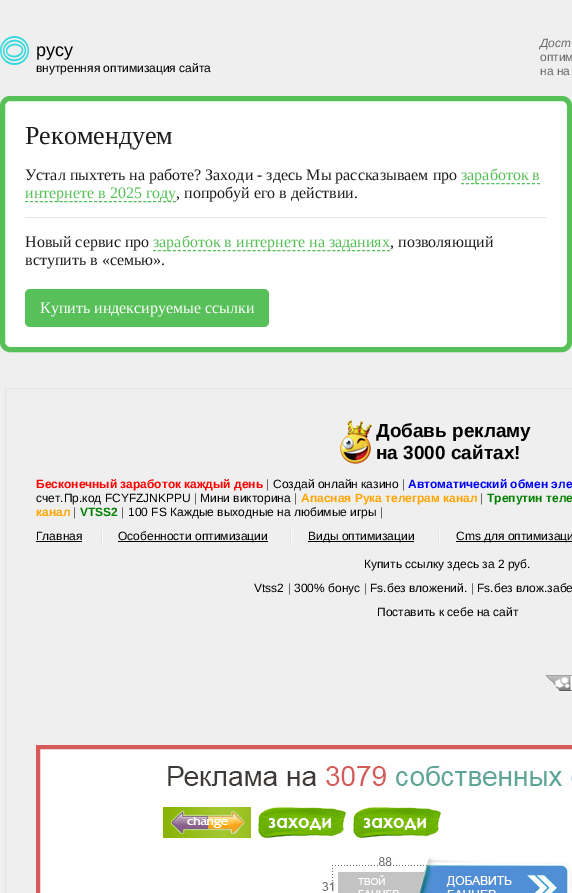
%!PS-Adobe-3.0
%%BoundingBox: 0 0 572 893
%%LanguageLevel: 3
%%Pages: 1
%%EndComments
%%BeginProlog
/m { moveto } bind def
/l { lineto } bind def
/h { closepath } bind def
/f { fill } bind def
/S { stroke } bind def
/q { gsave } bind def
/Q { grestore } bind def
/w { setlinewidth } bind def
/fn { [ exch dup neg 0 0 3 -1 roll 0 0 ] selectfont } def
/tx { moveto show } def
/bx { rectfill } def
/rr { 5 dict begin { /r /h /w /y /x } { exch def } forall
  x r add y moveto x w add y 2 copy h add r arct x w add y h add x 1 index r arct
  x y h add x y r arct x y 2 copy exch w add exch r arct closepath end } def
/im { 5 dict begin { /h /w /y /x /name } { exch def } forall
  gsave x y translate w h scale
  w h 8 [w 0 0 h 0 0] name (r) file false 3 colorimage grestore end } def
%%EndProlog
%%BeginSetup
<< /PageSize [572 893] >> setpagedevice
%%EndSetup
%%Page: 1 1
0 893 translate 1 -1 scale
4 setmiterlimit
0.937 setgray
0 0 572 893 bx
(image0.raw) 0 36 29 29 im
/LiberationSans-Regular 18 fn
0 setgray
(pycy) 36 56 tx
/LiberationSans-Regular 12 fn
(внутренняя оптимизация сайта) 36 72 tx
/LiberationSans-Italic 12 fn
0.416 setgray
(Дост) 540 47 tx
/LiberationSans-Regular 12 fn
(оптим) 540 61 tx
(на на) 540 75 tx
1 setgray
2.5 98.5 567 251 7.5 rr q f Q
0.341 0.753 0.345 setrgbcolor
5 w
S
/LiberationSerif-Regular 26 fn
0.118 setgray
(Рекомендуем) 25 144 tx
/LiberationSerif-Regular 16 fn
(Устал пыхтеть на работе? Заходи - здесь Мы рассказываем про) 25 180 tx
0.341 0.753 0.345 setrgbcolor
1 w
[3 2.07] 0 setdash
461 183.5 m 540 183.5 l S
(заработок в) 461 180 tx
[3 1.93] 0 setdash
25 201.5 m 176 201.5 l S
(интернете в 2025 году) 25 198 tx
0.118 setgray
(, попробуй его в действии.) 176 198 tx
0.898 setgray
25 217 522 1 bx
0.118 setgray
(Новый сервис про) 25 247 tx
0.341 0.753 0.345 setrgbcolor
[3 1.98] 0 setdash
153 250.5 m 390 250.5 l S
(заработок в интернете на заданиях) 153 247 tx
0.118 setgray
(, позволяющий) 390 247 tx
(вступить в «семью».) 25 265 tx
0.341 0.753 0.345 setrgbcolor
25 289 244 38 5 rr f
1 setgray
(Купить индексируемые ссылки) 40 313 tx
0.894 setgray
[] 0 setdash
5.5 388.5 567 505 rectstroke
(image1.raw) 340 420 32 44 im
/LiberationSans-Bold 19 fn
0 setgray
(Добавь рекламу) 376 437 tx
(на 3000 сайтах!) 376 459 tx
/LiberationSans-Bold 12 fn
1 0 0 setrgbcolor
(Бесконечный заработок каждый день) 36 488 tx
/LiberationSans-Regular 12 fn
0.416 setgray
(|) 266 488 tx
0 setgray
(Создай онлайн казино) 273 488 tx
0.416 setgray
(|) 402 488 tx
/LiberationSans-Bold 12 fn
0 0 1 setrgbcolor
(Автоматический обмен эле) 408 488 tx
/LiberationSans-Regular 12 fn
0 setgray
(счет.Пр.код FCYFZJNKPPU) 36 502 tx
0.416 setgray
(|) 194 502 tx
0 setgray
(Mини викторина) 200 502 tx
0.416 setgray
(|) 294 502 tx
/LiberationSans-Bold 12 fn
1 0.647 0 setrgbcolor
(Апасная Рука телеграм канал) 301 502 tx
/LiberationSans-Regular 12 fn
0.416 setgray
(|) 480 502 tx
/LiberationSans-Bold 12 fn
0 0.502 0 setrgbcolor
(Трепутин теле) 487 502 tx
1 0.647 0 setrgbcolor
(канал) 36 516 tx
/LiberationSans-Regular 12 fn
0.416 setgray
(|) 73 516 tx
/LiberationSans-Bold 12 fn
0 0.502 0 setrgbcolor
(VTSS2) 80 516 tx
/LiberationSans-Regular 12 fn
0.416 setgray
(|) 121 516 tx
0 setgray
(100 FS Каждые выходные на любимые игры) 128 516 tx
0.416 setgray
(|) 380 516 tx
0 setgray
(Главная) 36 540 tx
36 541 46 1 bx
(image2.raw) 101 530 2 13 im
118 541 150 1 bx
(Особенности оптимизации) 118 540 tx
(image2.raw) 290 530 2 13 im
308 541 106 1 bx
(Виды оптимизации) 308 540 tx
(image2.raw) 438 530 2 13 im
456 541 116 1 bx
(Сms для оптимизаци) 456 540 tx
(Купить ссылку здесь за 2 руб.) 364 568 tx
(Vtss2) 254 592 tx
0.416 setgray
(|) 288 592 tx
0 setgray
(300% бонус) 294 592 tx
0.416 setgray
(|) 364 592 tx
0 setgray
(Fs.без вложений.) 370 592 tx
0.416 setgray
(|) 471 592 tx
0 setgray
(Fs.без влож.забе) 477 592 tx
(Поставить к себе на сайт) 377 616 tx
(image3.raw) 545 675 27 16 im
1 setgray
38 747 m 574 747 l 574 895 l 38 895 l h q f Q
0.835 0.353 0.349 setrgbcolor
4 w
S
(image4.raw) 167 763 405 24 im
(image5.raw) 163 807 88 31 im
(image6.raw) 258 807 88 31 im
(image6.raw) 353 807 88 31 im
(image7.raw) 322 857 250 36 im
showpage
%%EOF
